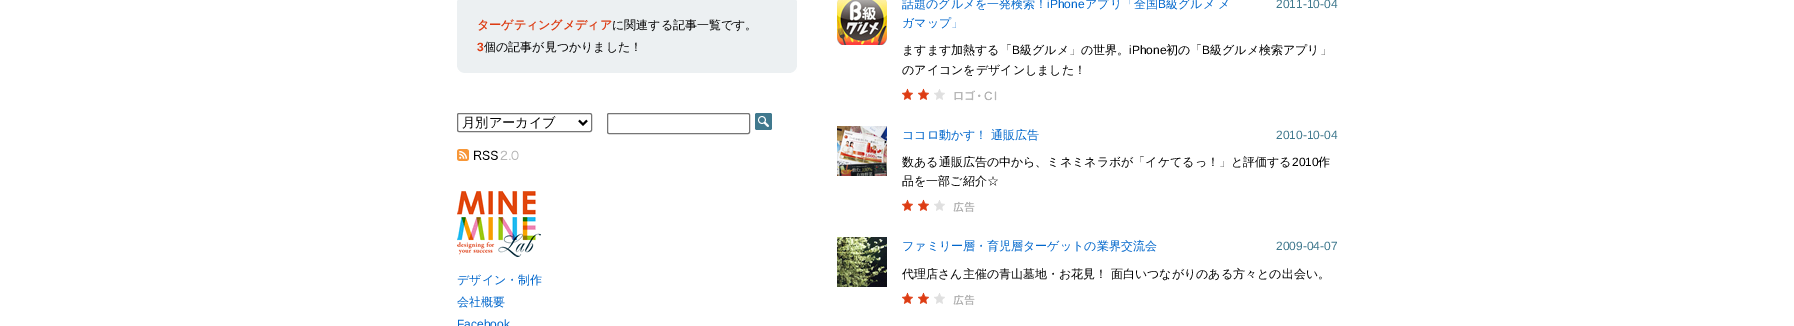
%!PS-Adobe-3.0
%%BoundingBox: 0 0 1794 326
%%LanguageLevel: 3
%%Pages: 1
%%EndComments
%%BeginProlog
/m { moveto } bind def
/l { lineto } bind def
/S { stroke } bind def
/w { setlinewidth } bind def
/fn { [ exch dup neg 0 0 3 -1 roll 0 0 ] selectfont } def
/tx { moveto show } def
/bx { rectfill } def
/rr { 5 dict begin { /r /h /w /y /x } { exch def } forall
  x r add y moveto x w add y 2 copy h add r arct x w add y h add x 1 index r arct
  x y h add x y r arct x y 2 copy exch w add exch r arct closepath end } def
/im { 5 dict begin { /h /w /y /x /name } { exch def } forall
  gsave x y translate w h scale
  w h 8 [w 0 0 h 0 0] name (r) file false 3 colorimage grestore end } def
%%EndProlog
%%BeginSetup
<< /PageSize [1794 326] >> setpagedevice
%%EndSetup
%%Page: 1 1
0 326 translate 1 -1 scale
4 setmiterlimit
1 setgray
0 0 1794 326 bx
0.925 0.941 0.949 setrgbcolor
457 1 340 66 bx
(image0.raw) 457 0 340 1 im
(image1.raw) 457 67 340 6 im
/WenQuanYiZenHei-Bold 12 fn
0.867 0.235 0.075 setrgbcolor
(ターゲティングメディア) 477 29 tx
/WenQuanYiZenHei-Medium 12 fn
0 setgray
(に関連する記事一覧です。) 612 29 tx
/LiberationSans-Bold 12 fn
0.867 0.235 0.075 setrgbcolor
(3) 477 51 tx
/WenQuanYiZenHei-Medium 12 fn
0 setgray
(個の記事が見つかりました！) 484 51 tx
0.463 setgray
457.5 113.5 134 18 1.5 rr S
0 setgray
2 w
579 120.5 m 583 124.5 l 587 120.5 l S
/WenQuanYiZenHei-Medium 13.25 fn
(月別アーカイブ) 462 127 tx
0.463 setgray
1 w
607.5 113.5 142 20 1.5 rr S
(image2.raw) 755 113 17 17 im
(image3.raw) 457 149 62 12 im
(image4.raw) 457 191 84 66 im
/WenQuanYiZenHei-Medium 12 fn
0 0.4 0.8 setrgbcolor
(デザイン・制作) 457 284 tx
(会社概要) 457 306 tx
/LiberationSans-Regular 12 fn
(Facebook) 457 328 tx
(image5.raw) 837 0 50 45 im
/WenQuanYiZenHei-Medium 12 fn
(話題のグルメを一発検索！) 902 8 tx
/LiberationSans-Regular 12 fn
(iPhone) 1047 8 tx
/WenQuanYiZenHei-Medium 12 fn
(アプリ「全国) 1085 8 tx
/LiberationSans-Regular 12 fn
(B) 1158 8 tx
/WenQuanYiZenHei-Medium 12 fn
(級グルメ メ) 1166 8 tx
(ガマップ」) 902 27 tx
/LiberationSans-Regular 12 fn
0.251 0.475 0.557 setrgbcolor
(2011-10-04) 1276 8 tx
/WenQuanYiZenHei-Medium 12 fn
0 setgray
(ますます加熱する「) 902 54 tx
/LiberationSans-Regular 12 fn
(B) 1012 54 tx
/WenQuanYiZenHei-Medium 12 fn
(級グルメ」の世界。) 1020 54 tx
/LiberationSans-Regular 12 fn
(iPhone) 1129 54 tx
/WenQuanYiZenHei-Medium 12 fn
(初の「) 1166 54 tx
/LiberationSans-Regular 12 fn
(B) 1202 54 tx
/WenQuanYiZenHei-Medium 12 fn
(級グルメ検索アプリ」) 1210 54 tx
(のアイコンをデザインしました！) 902 74 tx
(image6.raw) 902 88 43 12 im
(image7.raw) 954 90 43 11 im
(image8.raw) 837 126 50 50 im
0 0.4 0.8 setrgbcolor
(ココロ動かす！ 通販広告) 902 139 tx
/LiberationSans-Regular 12 fn
0.251 0.475 0.557 setrgbcolor
(2010-10-04) 1276 139 tx
/WenQuanYiZenHei-Medium 12 fn
0 setgray
(数ある通販広告の中から、ミネミネラボが「イケてるっ！」と評価する) 902 166 tx
/LiberationSans-Regular 12 fn
(2010) 1292 166 tx
/WenQuanYiZenHei-Medium 12 fn
(作) 1318 166 tx
(品を一部ご紹介☆) 902 185 tx
(image6.raw) 902 199 43 12 im
(image9.raw) 953 201 22 11 im
(image10.raw) 837 237 50 50 im
0 0.4 0.8 setrgbcolor
(ファミリー層・育児層ターゲットの業界交流会) 902 250 tx
/LiberationSans-Regular 12 fn
0.251 0.475 0.557 setrgbcolor
(2009-04-07) 1276 250 tx
/WenQuanYiZenHei-Medium 12 fn
0 setgray
(代理店さん主催の青山墓地・お花見！ 面白いつながりのある方々との出会い。) 902 278 tx
(image6.raw) 902 292 43 12 im
(image9.raw) 953 294 22 11 im
showpage
%%EOF
